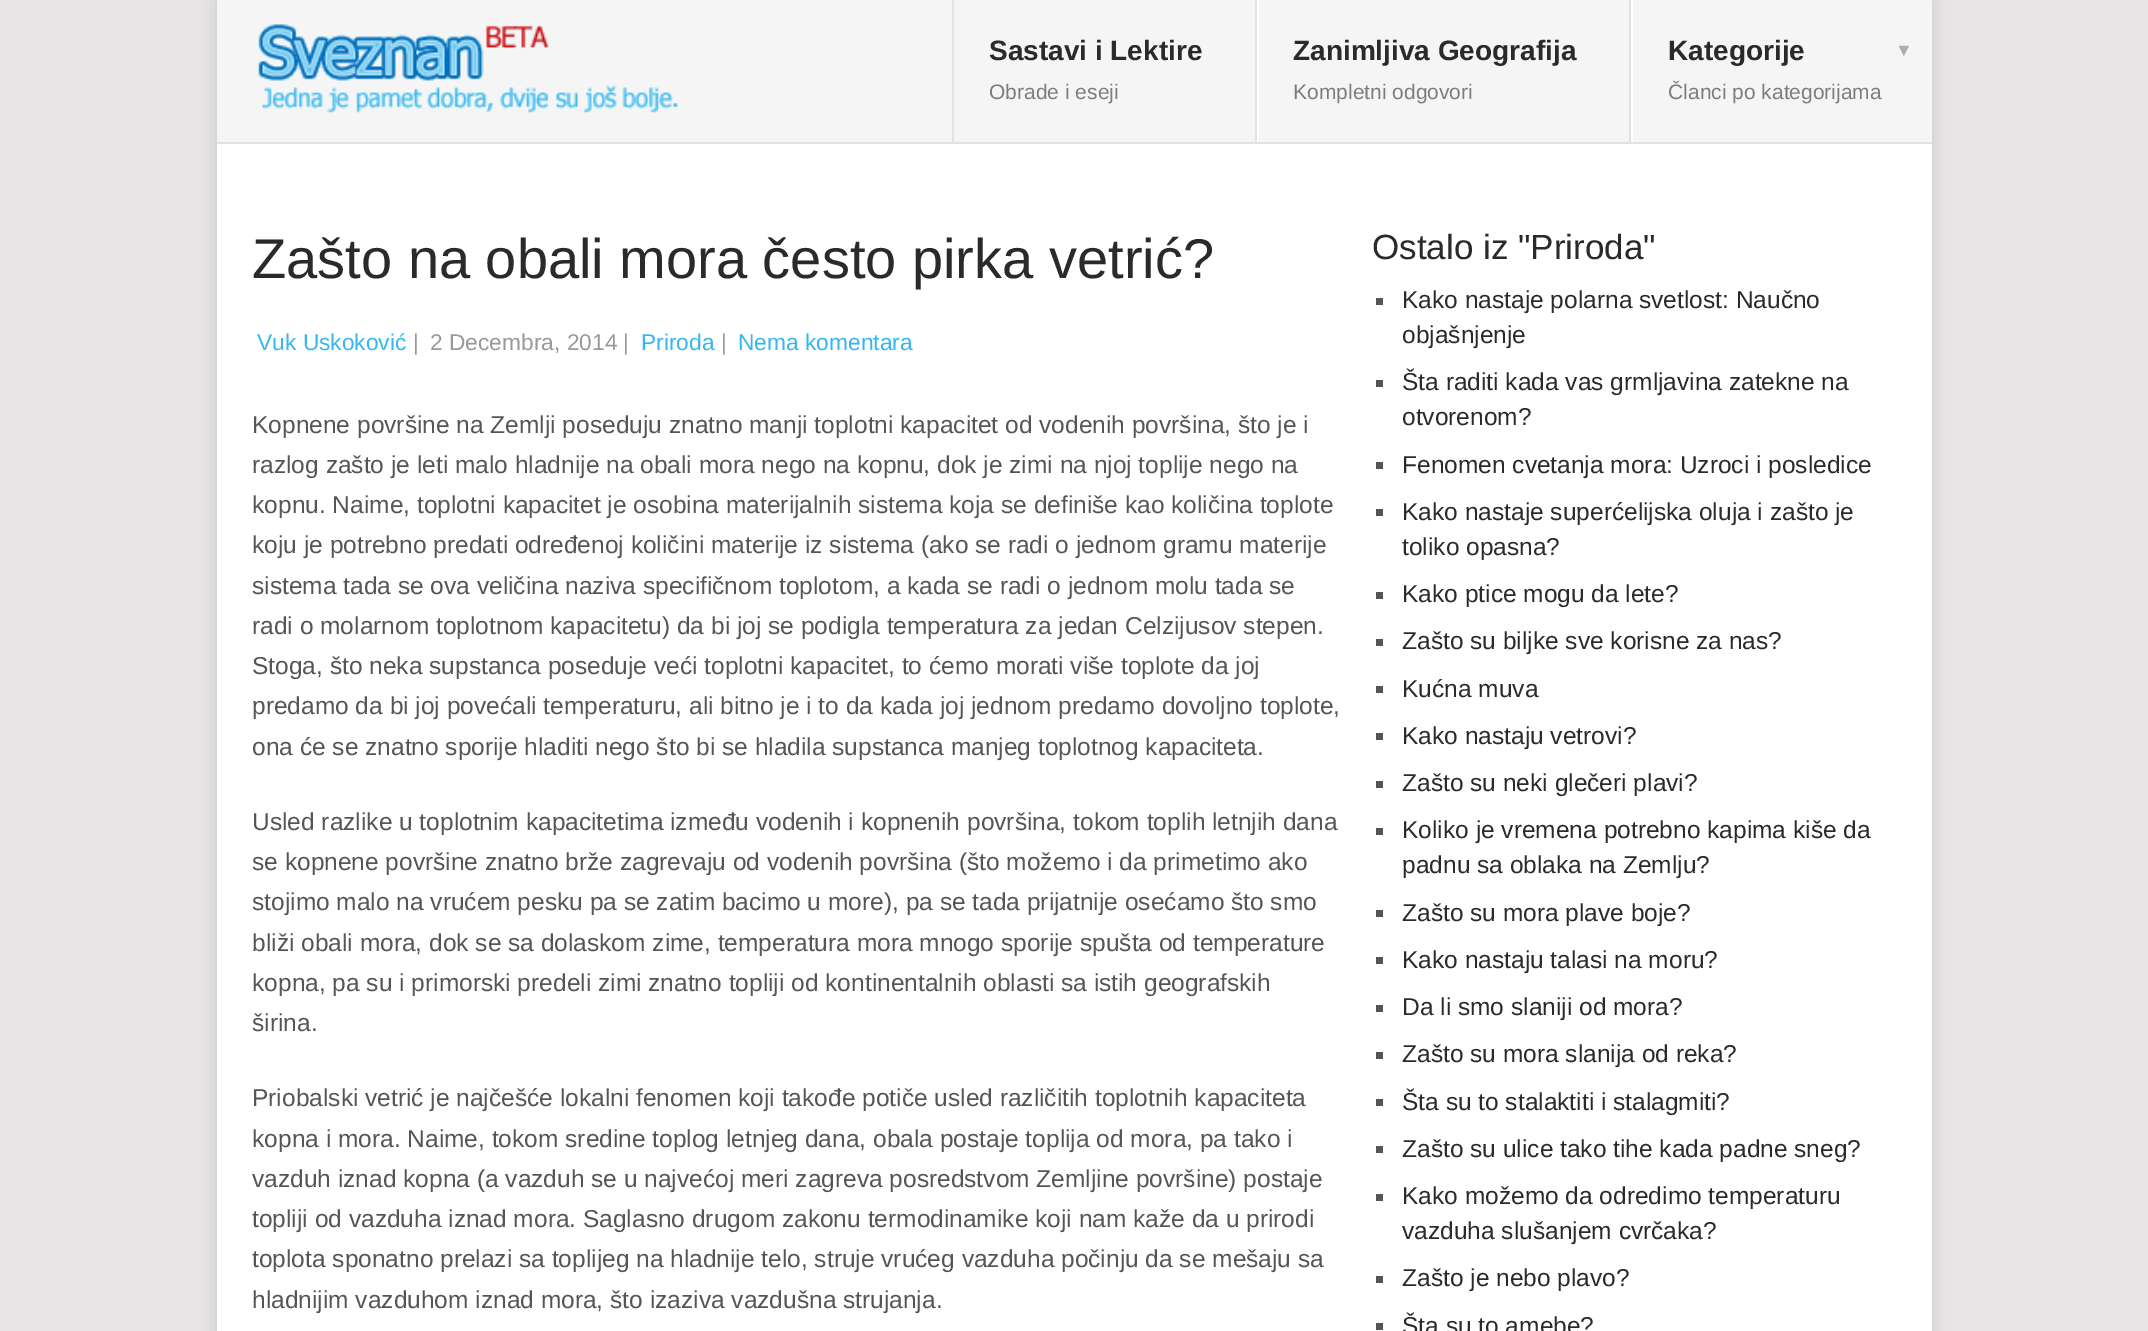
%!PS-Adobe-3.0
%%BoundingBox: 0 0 2148 1331
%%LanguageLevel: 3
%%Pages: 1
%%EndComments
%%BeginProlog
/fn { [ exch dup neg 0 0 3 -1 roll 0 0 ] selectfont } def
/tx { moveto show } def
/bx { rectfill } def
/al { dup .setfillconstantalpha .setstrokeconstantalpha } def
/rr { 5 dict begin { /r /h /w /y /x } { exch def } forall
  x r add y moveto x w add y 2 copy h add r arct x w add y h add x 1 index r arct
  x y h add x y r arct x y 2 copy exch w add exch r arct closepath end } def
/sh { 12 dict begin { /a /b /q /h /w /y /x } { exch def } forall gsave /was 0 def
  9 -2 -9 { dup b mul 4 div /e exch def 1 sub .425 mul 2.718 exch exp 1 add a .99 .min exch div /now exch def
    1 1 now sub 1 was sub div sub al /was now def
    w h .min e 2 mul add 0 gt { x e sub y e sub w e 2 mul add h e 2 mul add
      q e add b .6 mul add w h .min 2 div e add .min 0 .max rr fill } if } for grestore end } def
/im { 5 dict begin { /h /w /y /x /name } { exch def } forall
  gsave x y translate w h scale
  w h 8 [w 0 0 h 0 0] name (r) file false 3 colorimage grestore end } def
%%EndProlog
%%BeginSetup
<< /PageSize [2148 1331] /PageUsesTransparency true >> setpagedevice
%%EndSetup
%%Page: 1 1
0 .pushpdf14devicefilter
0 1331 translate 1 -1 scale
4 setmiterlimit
0.906 0.898 0.902 setrgbcolor
0 0 2148 1331 bx
0.196 setgray
217 0 1715 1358 0 9 0.17 sh
1 setgray
217 144 1715 1187 bx
0.961 setgray
217 0 1715 142 bx
(image0.raw) 258 24 420 89 im
0.886 setgray
1255 0 2 144 bx
952 0 2 144 bx
/LiberationSans-Bold 28 fn
0.165 setgray
(Sastavi i Lektire) 989 60 tx
/LiberationSans-Regular 21 fn
0.49 setgray
(Obrade i eseji) 989 99 tx
0.886 setgray
1629 0 2 144 bx
1 setgray
1257 0 2 144 bx
/LiberationSans-Bold 28 fn
0.165 setgray
(Zanimljiva Geografija) 1293 60 tx
/LiberationSans-Regular 21 fn
0.49 setgray
(Kompletni odgovori) 1293 99 tx
1 setgray
1631 0 2 144 bx
/LiberationSans-Bold 28 fn
0.165 setgray
(Kategorije) 1668 60 tx
/LiberationSans-Bold 18 fn
0.678 setgray
(▼) 1895 56 tx
/LiberationSans-Regular 21 fn
0.49 setgray
(Članci po kategorijama) 1668 99 tx
0.886 setgray
217 142 1715 2 bx
/LiberationSans-Regular 56 fn
0.165 setgray
(Zašto na obali mora često pirka vetrić?) 252 278 tx
/LiberationSans-Regular 22.75 fn
0.22 0.718 0.933 setrgbcolor
(Vuk Uskoković) 257 350 tx
0.6 setgray
(|) 413 350 tx
(2 Decembra, 2014 |) 430 350 tx
0.22 0.718 0.933 setrgbcolor
(Priroda) 641 350 tx
0.6 setgray
(|) 721 350 tx
0.22 0.718 0.933 setrgbcolor
(Nema komentara) 738 350 tx
/LiberationSans-Regular 24.5 fn
0.333 setgray
(Kopnene površine na Zemlji poseduju znatno manji toplotni kapacitet od vodenih površina, što je i) 252 433 tx
(razlog zašto je leti malo hladnije na obali mora nego na kopnu, dok je zimi na njoj toplije nego na) 252 473 tx
(kopnu. Naime, toplotni kapacitet je osobina materijalnih sistema koja se definiše kao količina toplote) 252 513 tx
(koju je potrebno predati određenoj količini materije iz sistema \(ako se radi o jednom gramu materije) 252 553 tx
(sistema tada se ova veličina naziva specifičnom toplotom, a kada se radi o jednom molu tada se) 252 594 tx
(radi o molarnom toplotnom kapacitetu\) da bi joj se podigla temperatura za jedan Celzijusov stepen.) 252 634 tx
(Stoga, što neka supstanca poseduje veći toplotni kapacitet, to ćemo morati više toplote da joj) 252 674 tx
(predamo da bi joj povećali temperaturu, ali bitno je i to da kada joj jednom predamo dovoljno toplote,) 252 714 tx
(ona će se znatno sporije hladiti nego što bi se hladila supstanca manjeg toplotnog kapaciteta.) 252 755 tx
(Usled razlike u toplotnim kapacitetima između vodenih i kopnenih površina, tokom toplih letnjih dana) 252 830 tx
(se kopnene površine znatno brže zagrevaju od vodenih površina \(što možemo i da primetimo ako) 252 870 tx
(stojimo malo na vrućem pesku pa se zatim bacimo u more\), pa se tada prijatnije osećamo što smo) 252 910 tx
(bliži obali mora, dok se sa dolaskom zime, temperatura mora mnogo sporije spušta od temperature) 252 951 tx
(kopna, pa su i primorski predeli zimi znatno topliji od kontinentalnih oblasti sa istih geografskih) 252 991 tx
(širina.) 252 1031 tx
(Priobalski vetrić je najčešće lokalni fenomen koji takođe potiče usled različitih toplotnih kapaciteta) 252 1106 tx
(kopna i mora. Naime, tokom sredine toplog letnjeg dana, obala postaje toplija od mora, pa tako i) 252 1147 tx
(vazduh iznad kopna \(a vazduh se u najvećoj meri zagreva posredstvom Zemljine površine\) postaje) 252 1187 tx
(topliji od vazduha iznad mora. Saglasno drugom zakonu termodinamike koji nam kaže da u prirodi) 252 1227 tx
(toplota sponatno prelazi sa toplijeg na hladnije telo, struje vrućeg vazduha počinju da se mešaju sa) 252 1267 tx
(hladnijim vazduhom iznad mora, što izaziva vazdušna strujanja.) 252 1308 tx
/LiberationSans-Regular 35 fn
0.165 setgray
(Ostalo iz "Priroda") 1372 259 tx
0.333 setgray
1376 298 7 7 bx
/LiberationSans-Regular 24.5 fn
0.165 setgray
(Kako nastaje polarna svetlost: Naučno) 1402 308 tx
(objašnjenje) 1402 343 tx
0.333 setgray
1376 380 7 7 bx
0.165 setgray
(Šta raditi kada vas grmljavina zatekne na) 1402 390 tx
(otvorenom?) 1402 425 tx
0.333 setgray
1376 462 7 7 bx
0.165 setgray
(Fenomen cvetanja mora: Uzroci i posledice) 1402 473 tx
0.333 setgray
1376 509 7 7 bx
0.165 setgray
(Kako nastaje superćelijska oluja i zašto je) 1402 520 tx
(toliko opasna?) 1402 555 tx
0.333 setgray
1376 592 7 7 bx
0.165 setgray
(Kako ptice mogu da lete?) 1402 602 tx
0.333 setgray
1376 639 7 7 bx
0.165 setgray
(Zašto su biljke sve korisne za nas?) 1402 649 tx
0.333 setgray
1376 686 7 7 bx
0.165 setgray
(Kućna muva) 1402 697 tx
0.333 setgray
1376 733 7 7 bx
0.165 setgray
(Kako nastaju vetrovi?) 1402 744 tx
0.333 setgray
1376 781 7 7 bx
0.165 setgray
(Zašto su neki glečeri plavi?) 1402 791 tx
0.333 setgray
1376 828 7 7 bx
0.165 setgray
(Koliko je vremena potrebno kapima kiše da) 1402 838 tx
(padnu sa oblaka na Zemlju?) 1402 873 tx
0.333 setgray
1376 910 7 7 bx
0.165 setgray
(Zašto su mora plave boje?) 1402 921 tx
0.333 setgray
1376 957 7 7 bx
0.165 setgray
(Kako nastaju talasi na moru?) 1402 968 tx
0.333 setgray
1376 1005 7 7 bx
0.165 setgray
(Da li smo slaniji od mora?) 1402 1015 tx
0.333 setgray
1376 1052 7 7 bx
0.165 setgray
(Zašto su mora slanija od reka?) 1402 1062 tx
0.333 setgray
1376 1099 7 7 bx
0.165 setgray
(Šta su to stalaktiti i stalagmiti?) 1402 1110 tx
0.333 setgray
1376 1146 7 7 bx
0.165 setgray
(Zašto su ulice tako tihe kada padne sneg?) 1402 1157 tx
0.333 setgray
1376 1194 7 7 bx
0.165 setgray
(Kako možemo da odredimo temperaturu) 1402 1204 tx
(vazduha slušanjem cvrčaka?) 1402 1239 tx
0.333 setgray
1376 1276 7 7 bx
0.165 setgray
(Zašto je nebo plavo?) 1402 1286 tx
0.333 setgray
1376 1323 7 7 bx
0.165 setgray
(Šta su to amebe?) 1402 1334 tx
.poppdf14devicefilter showpage
%%EOF
